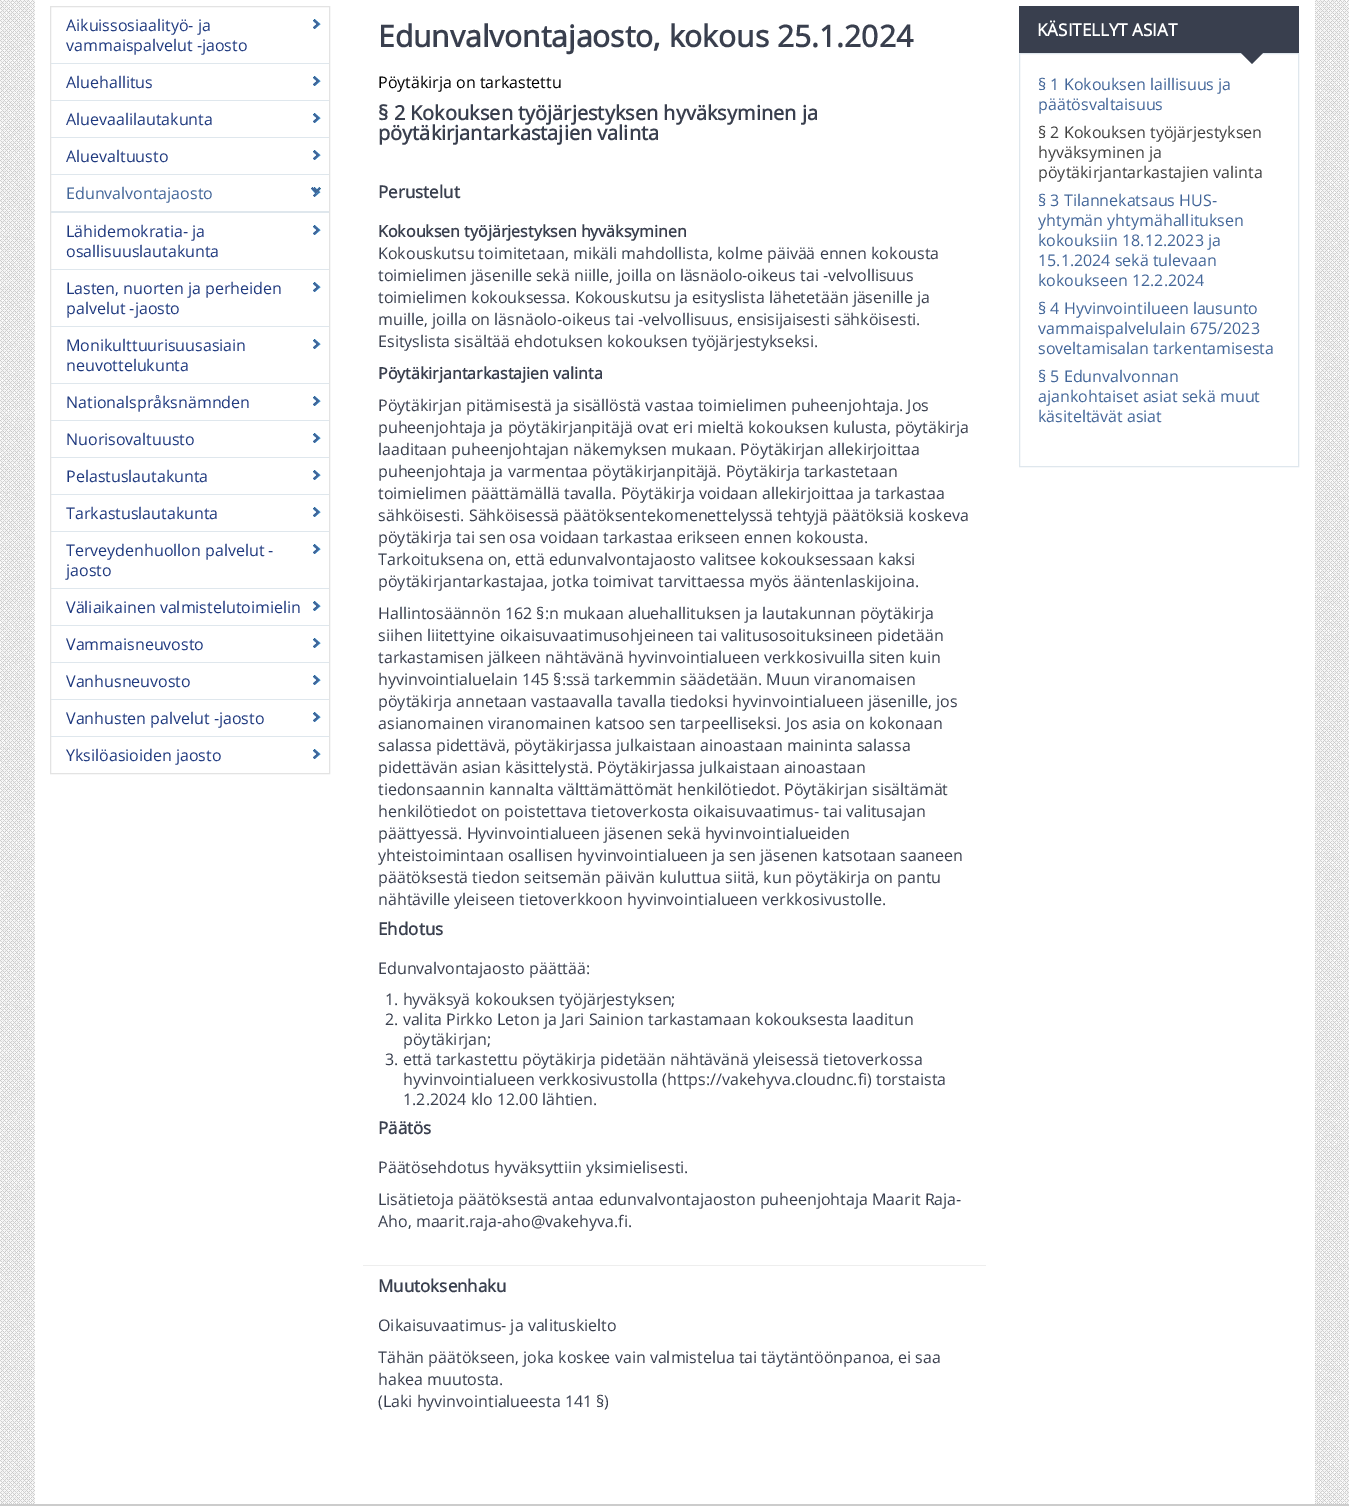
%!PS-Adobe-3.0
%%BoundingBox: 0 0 1349 1506
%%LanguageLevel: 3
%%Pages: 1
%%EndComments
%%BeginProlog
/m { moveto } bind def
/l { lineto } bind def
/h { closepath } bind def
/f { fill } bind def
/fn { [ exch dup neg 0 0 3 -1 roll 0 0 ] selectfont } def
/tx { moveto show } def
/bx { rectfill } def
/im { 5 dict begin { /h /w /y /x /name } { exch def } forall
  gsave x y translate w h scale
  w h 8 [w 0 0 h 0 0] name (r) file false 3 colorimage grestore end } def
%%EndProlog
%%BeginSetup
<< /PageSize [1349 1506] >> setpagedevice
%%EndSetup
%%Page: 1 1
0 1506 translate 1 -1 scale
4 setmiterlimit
0.8 setgray
0 0 1349 1506 bx
(image0.raw) 0 0 1349 1504 im
1 setgray
35 0 1280 1504 bx
0.89 setgray
50.5 6.5 279 767 rectstroke
(image1.raw) 313 19 8 10 im
0.875 0.906 0.929 setrgbcolor
51 63 278 1 bx
(image2.raw) 313 19 8 10 im
/OpenSans-Regular 16 fn
0.125 0.227 0.498 setrgbcolor
(Aikuissosiaalityö- ja) 66 31 tx
(vammaispalvelut -jaosto) 66 51 tx
(image1.raw) 313 76 8 10 im
0.875 0.906 0.929 setrgbcolor
51 100 278 1 bx
(image2.raw) 313 76 8 10 im
0.125 0.227 0.498 setrgbcolor
(Aluehallitus) 66 88 tx
(image1.raw) 313 113 8 10 im
0.875 0.906 0.929 setrgbcolor
51 137 278 1 bx
(image2.raw) 313 113 8 10 im
0.125 0.227 0.498 setrgbcolor
(Aluevaalilautakunta) 66 125 tx
(image1.raw) 313 150 8 10 im
0.875 0.906 0.929 setrgbcolor
51 174 278 1 bx
(image2.raw) 313 150 8 10 im
0.125 0.227 0.498 setrgbcolor
(Aluevaltuusto) 66 162 tx
(image1.raw) 313 187 8 10 im
0.875 0.906 0.929 setrgbcolor
51 211 278 2 bx
(image3.raw) 311 187 10 8 im
0.263 0.4 0.6 setrgbcolor
(Edunvalvontajaosto) 66 199 tx
(image1.raw) 313 225 8 10 im
0.875 0.906 0.929 setrgbcolor
51 269 278 1 bx
(image2.raw) 313 225 8 10 im
0.125 0.227 0.498 setrgbcolor
(Lähidemokratia- ja) 66 237 tx
(osallisuuslautakunta) 66 257 tx
(image1.raw) 313 282 8 10 im
0.875 0.906 0.929 setrgbcolor
51 326 278 1 bx
(image2.raw) 313 282 8 10 im
0.125 0.227 0.498 setrgbcolor
(Lasten, nuorten ja perheiden) 66 294 tx
(palvelut -jaosto) 66 314 tx
(image1.raw) 313 339 8 10 im
0.875 0.906 0.929 setrgbcolor
51 383 278 1 bx
(image2.raw) 313 339 8 10 im
0.125 0.227 0.498 setrgbcolor
(Monikulttuurisuusasiain) 66 351 tx
(neuvottelukunta) 66 371 tx
(image1.raw) 313 396 8 10 im
0.875 0.906 0.929 setrgbcolor
51 420 278 1 bx
(image2.raw) 313 396 8 10 im
0.125 0.227 0.498 setrgbcolor
(Nationalspråksnämnden) 66 408 tx
(image1.raw) 313 433 8 10 im
0.875 0.906 0.929 setrgbcolor
51 457 278 1 bx
(image2.raw) 313 433 8 10 im
0.125 0.227 0.498 setrgbcolor
(Nuorisovaltuusto) 66 445 tx
(image1.raw) 313 470 8 10 im
0.875 0.906 0.929 setrgbcolor
51 494 278 1 bx
(image2.raw) 313 470 8 10 im
0.125 0.227 0.498 setrgbcolor
(Pelastuslautakunta) 66 482 tx
(image1.raw) 313 507 8 10 im
0.875 0.906 0.929 setrgbcolor
51 531 278 1 bx
(image2.raw) 313 507 8 10 im
0.125 0.227 0.498 setrgbcolor
(Tarkastuslautakunta) 66 519 tx
(image1.raw) 313 544 8 10 im
0.875 0.906 0.929 setrgbcolor
51 588 278 1 bx
(image2.raw) 313 544 8 10 im
0.125 0.227 0.498 setrgbcolor
(Terveydenhuollon palvelut -) 66 556 tx
(jaosto) 66 576 tx
(image1.raw) 313 601 8 10 im
0.875 0.906 0.929 setrgbcolor
51 625 278 1 bx
(image2.raw) 313 601 8 10 im
0.125 0.227 0.498 setrgbcolor
(Väliaikainen valmistelutoimielin) 66 613 tx
(image1.raw) 313 638 8 10 im
0.875 0.906 0.929 setrgbcolor
51 662 278 1 bx
(image2.raw) 313 638 8 10 im
0.125 0.227 0.498 setrgbcolor
(Vammaisneuvosto) 66 650 tx
(image1.raw) 313 675 8 10 im
0.875 0.906 0.929 setrgbcolor
51 699 278 1 bx
(image2.raw) 313 675 8 10 im
0.125 0.227 0.498 setrgbcolor
(Vanhusneuvosto) 66 687 tx
(image1.raw) 313 712 8 10 im
0.875 0.906 0.929 setrgbcolor
51 736 278 1 bx
(image2.raw) 313 712 8 10 im
0.125 0.227 0.498 setrgbcolor
(Vanhusten palvelut -jaosto) 66 724 tx
(image1.raw) 313 749 8 10 im
(image2.raw) 313 749 8 10 im
(Yksilöasioiden jaosto) 66 761 tx
/OpenSans-Bold 30 fn
0.224 0.247 0.306 setrgbcolor
(Edunvalvontajaosto, kokous 25.1.2024) 378 47 tx
/OpenSans-Regular 16 fn
0 setgray
(Pöytäkirja on tarkastettu) 378 88 tx
/OpenSans-Bold 20 fn
0.224 0.247 0.306 setrgbcolor
(§ 2 Kokouksen työjärjestyksen hyväksyminen ja) 378 120 tx
(pöytäkirjantarkastajien valinta) 378 140 tx
/OpenSans-Bold 17 fn
(Perustelut) 378 198 tx
/OpenSans-Bold 16 fn
(Kokouksen työjärjestyksen hyväksyminen) 378 237 tx
/OpenSans-Regular 16 fn
(Kokouskutsu toimitetaan, mikäli mahdollista, kolme päivää ennen kokousta) 378 259 tx
(toimielimen jäsenille sekä niille, joilla on läsnäolo-oikeus tai -velvollisuus) 378 281 tx
(toimielimen kokouksessa. Kokouskutsu ja esityslista lähetetään jäsenille ja) 378 303 tx
(muille, joilla on läsnäolo-oikeus tai -velvollisuus, ensisijaisesti sähköisesti.) 378 325 tx
(Esityslista sisältää ehdotuksen kokouksen työjärjestykseksi.) 378 347 tx
/OpenSans-Bold 16 fn
(Pöytäkirjantarkastajien valinta) 378 379 tx
/OpenSans-Regular 16 fn
(Pöytäkirjan pitämisestä ja sisällöstä vastaa toimielimen puheenjohtaja. Jos) 378 411 tx
(puheenjohtaja ja pöytäkirjanpitäjä ovat eri mieltä kokouksen kulusta, pöytäkirja) 378 433 tx
(laaditaan puheenjohtajan näkemyksen mukaan. Pöytäkirjan allekirjoittaa) 378 455 tx
(puheenjohtaja ja varmentaa pöytäkirjanpitäjä. Pöytäkirja tarkastetaan) 378 477 tx
(toimielimen päättämällä tavalla. Pöytäkirja voidaan allekirjoittaa ja tarkastaa) 378 499 tx
(sähköisesti. Sähköisessä päätöksentekomenettelyssä tehtyjä päätöksiä koskeva) 378 521 tx
(pöytäkirja tai sen osa voidaan tarkastaa erikseen ennen kokousta.) 378 543 tx
(Tarkoituksena on, että edunvalvontajaosto valitsee kokouksessaan kaksi) 378 565 tx
(pöytäkirjantarkastajaa, jotka toimivat tarvittaessa myös ääntenlaskijoina.) 378 587 tx
(Hallintosäännön 162 §:n mukaan aluehallituksen ja lautakunnan pöytäkirja) 378 619 tx
(siihen liitettyine oikaisuvaatimusohjeineen tai valitusosoituksineen pidetään) 378 641 tx
(tarkastamisen jälkeen nähtävänä hyvinvointialueen verkkosivuilla siten kuin) 378 663 tx
(hyvinvointialuelain 145 §:ssä tarkemmin säädetään. Muun viranomaisen) 378 685 tx
(pöytäkirja annetaan vastaavalla tavalla tiedoksi hyvinvointialueen jäsenille, jos) 378 707 tx
(asianomainen viranomainen katsoo sen tarpeelliseksi. Jos asia on kokonaan) 378 729 tx
(salassa pidettävä, pöytäkirjassa julkaistaan ainoastaan maininta salassa) 378 751 tx
(pidettävän asian käsittelystä. Pöytäkirjassa julkaistaan ainoastaan) 378 773 tx
(tiedonsaannin kannalta välttämättömät henkilötiedot. Pöytäkirjan sisältämät) 378 795 tx
(henkilötiedot on poistettava tietoverkosta oikaisuvaatimus- tai valitusajan) 378 817 tx
(päättyessä. Hyvinvointialueen jäsenen sekä hyvinvointialueiden) 378 839 tx
(yhteistoimintaan osallisen hyvinvointialueen ja sen jäsenen katsotaan saaneen) 378 861 tx
(päätöksestä tiedon seitsemän päivän kuluttua siitä, kun pöytäkirja on pantu) 378 883 tx
(nähtäville yleiseen tietoverkkoon hyvinvointialueen verkkosivustolle.) 378 905 tx
/OpenSans-Bold 17 fn
(Ehdotus) 378 935 tx
/OpenSans-Regular 16 fn
(Edunvalvontajaosto päättää:) 378 974 tx
(1. hyväksyä kokouksen työjärjestyksen;) 385 1005 tx
(2. valita Pirkko Leton ja Jari Sainion tarkastamaan kokouksesta laaditun) 385 1025 tx
(pöytäkirjan;) 403 1045 tx
(3. että tarkastettu pöytäkirja pidetään nähtävänä yleisessä tietoverkossa) 385 1065 tx
(hyvinvointialueen verkkosivustolla \(https://vakehyva.cloudnc.fi\) torstaista) 403 1085 tx
(1.2.2024 klo 12.00 lähtien.) 403 1105 tx
/OpenSans-Bold 17 fn
(Päätös) 378 1134 tx
/OpenSans-Regular 16 fn
(Päätösehdotus hyväksyttiin yksimielisesti.) 378 1173 tx
(Lisätietoja päätöksestä antaa edunvalvontajaoston puheenjohtaja Maarit Raja-) 378 1205 tx
(Aho, maarit.raja-aho@vakehyva.fi.) 378 1227 tx
0.933 setgray
363 1265 623 1 bx
/OpenSans-Bold 17 fn
0.224 0.247 0.306 setrgbcolor
(Muutoksenhaku) 378 1292 tx
/OpenSans-Regular 16 fn
(Oikaisuvaatimus- ja valituskielto) 378 1331 tx
(Tähän päätökseen, joka koskee vain valmistelua tai täytäntöönpanoa, ei saa) 378 1363 tx
(hakea muutosta.) 378 1385 tx
(\(Laki hyvinvointialueesta 141 §\)) 378 1407 tx
1019 6 280 47 bx
/OpenSans-Bold 17 fn
1 setgray
(KÄSITELLYT ASIAT) 1037 36 tx
0.875 0.906 0.929 setrgbcolor
1019.5 53.5 279 413 rectstroke
0.224 0.247 0.306 setrgbcolor
1241 53 m 1263 53 l 1252 64 l h f
/OpenSans-Regular 16 fn
0.263 0.4 0.6 setrgbcolor
(§ 1 Kokouksen laillisuus ja) 1038 90 tx
(päätösvaltaisuus) 1038 110 tx
0.255 setgray
(§ 2 Kokouksen työjärjestyksen) 1038 138 tx
(hyväksyminen ja) 1038 158 tx
(pöytäkirjantarkastajien valinta) 1038 178 tx
0.263 0.4 0.6 setrgbcolor
(§ 3 Tilannekatsaus HUS-) 1038 206 tx
(yhtymän yhtymähallituksen) 1038 226 tx
(kokouksiin 18.12.2023 ja) 1038 246 tx
(15.1.2024 sekä tulevaan) 1038 266 tx
(kokoukseen 12.2.2024) 1038 286 tx
(§ 4 Hyvinvointilueen lausunto) 1038 314 tx
(vammaispalvelulain 675/2023) 1038 334 tx
(soveltamisalan tarkentamisesta) 1038 354 tx
(§ 5 Edunvalvonnan) 1038 382 tx
(ajankohtaiset asiat sekä muut) 1038 402 tx
(käsiteltävät asiat) 1038 422 tx
showpage
%%EOF
